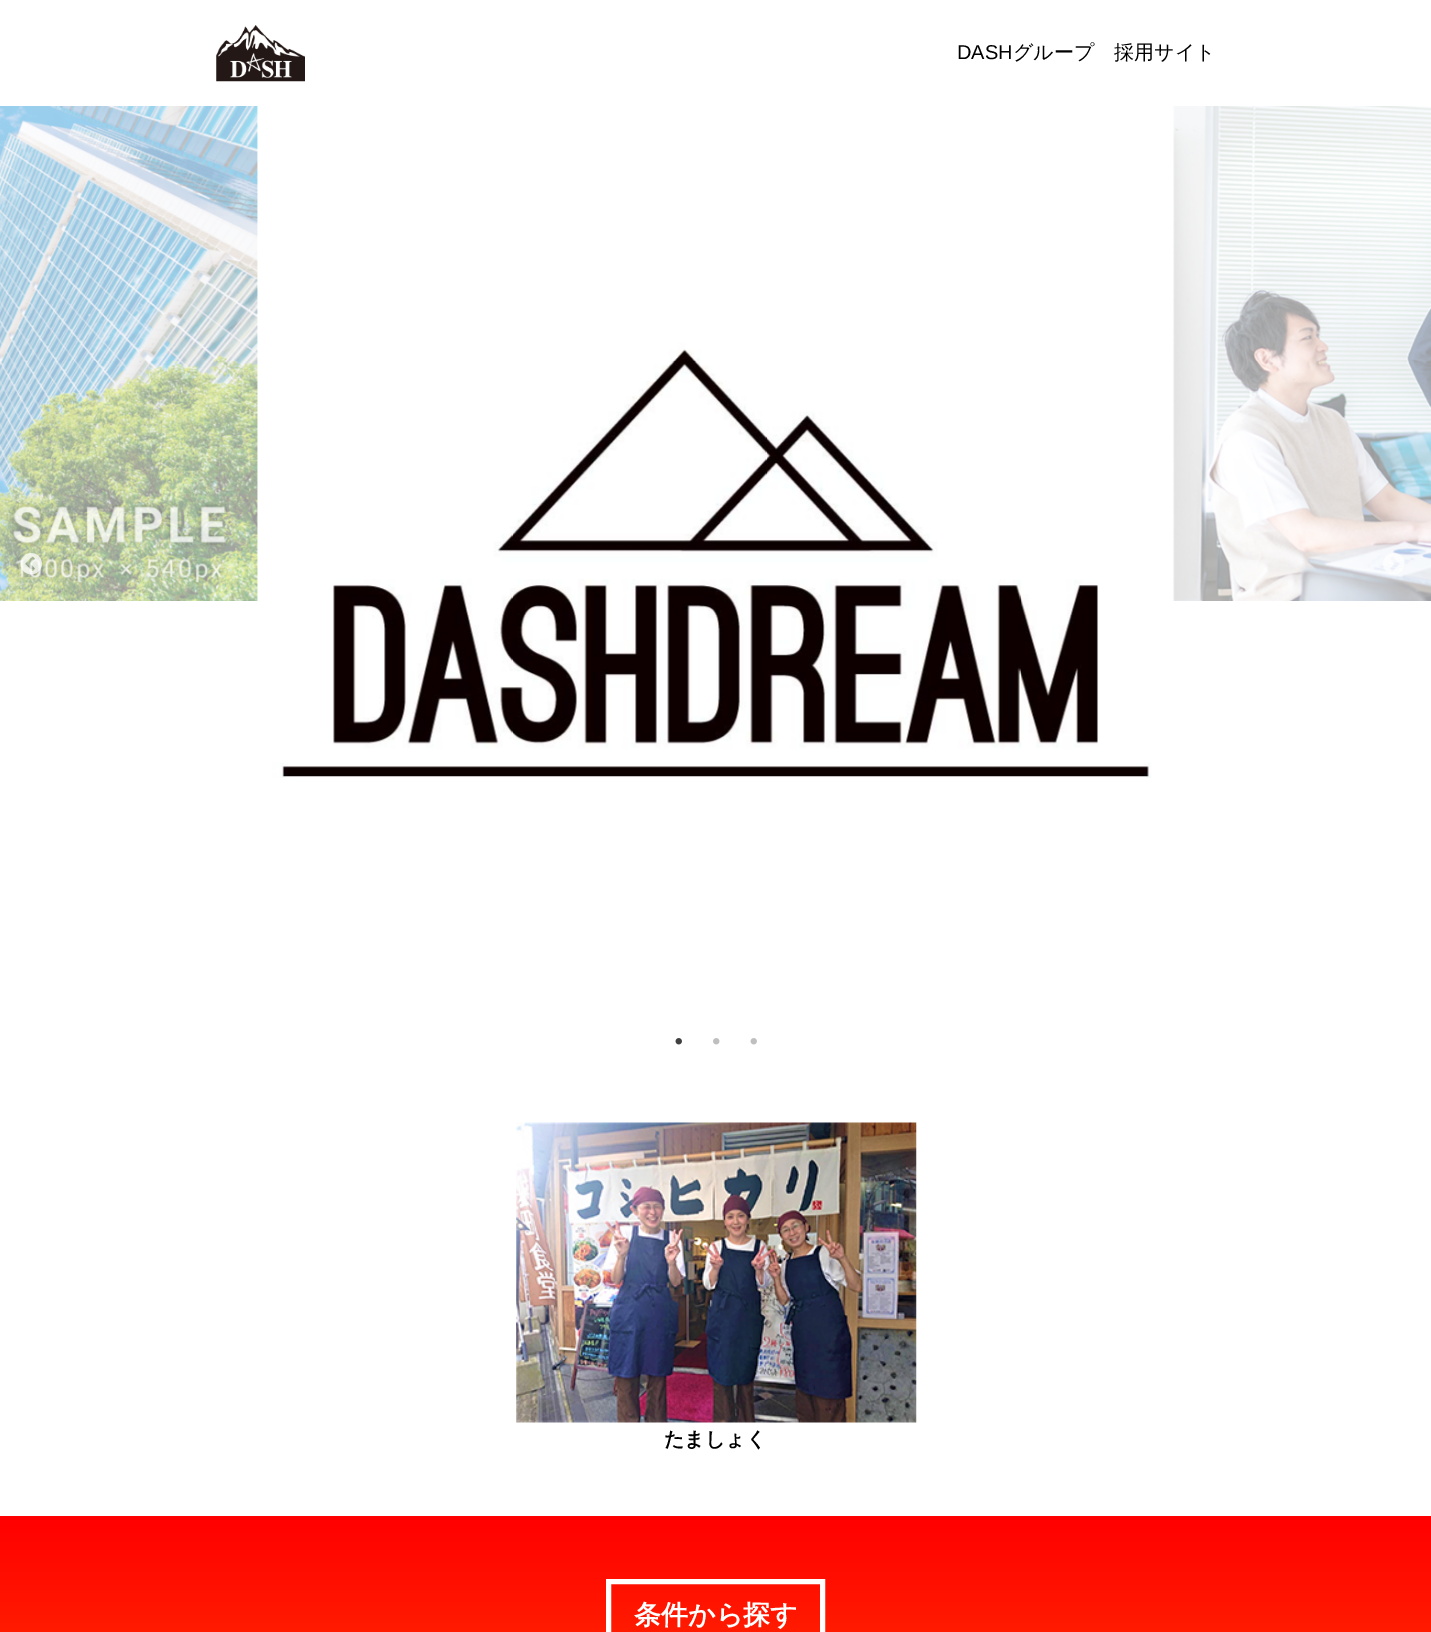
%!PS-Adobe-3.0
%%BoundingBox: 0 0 1431 1632
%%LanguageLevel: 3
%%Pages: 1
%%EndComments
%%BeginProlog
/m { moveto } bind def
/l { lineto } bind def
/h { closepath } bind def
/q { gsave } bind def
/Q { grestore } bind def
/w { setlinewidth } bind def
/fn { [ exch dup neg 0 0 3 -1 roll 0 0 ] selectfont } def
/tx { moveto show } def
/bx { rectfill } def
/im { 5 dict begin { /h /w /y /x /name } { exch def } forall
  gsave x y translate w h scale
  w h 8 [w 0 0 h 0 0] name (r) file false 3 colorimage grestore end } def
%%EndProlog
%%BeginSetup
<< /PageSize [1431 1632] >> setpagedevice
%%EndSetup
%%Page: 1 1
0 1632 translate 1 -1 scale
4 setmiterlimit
1 setgray
0 0 1431 1632 bx
(image0.raw) 216 25 89 57 im
/LiberationSans-Regular 20 fn
0 setgray
(DASH) 957 59 tx
/WenQuanYiZenHei-Medium 20 fn
(グループ　採用サイト) 1013 59 tx
(image1.raw) 0 106 258 495 im
(image2.raw) 258 106 894 672 im
(image3.raw) 1173 106 258 495 im
(image4.raw) 20 553 22 22 im
(image5.raw) 1383 553 22 21 im
(image6.raw) 675 1038 7 7 im
(image7.raw) 713 1038 7 7 im
(image8.raw) 750 1038 7 7 im
(image9.raw) 516 1122 401 301 im
/WenQuanYiZenHei-Bold 20 fn
(たましょく) 664 1446 tx
q 0 1516 m 1431 1516 l 1431 1632 l 0 1632 l h clip newpath
<< /ShadingType 2 /ColorSpace /DeviceRGB /Coords [716 1516 716 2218] /Extend [true true] /Function << /FunctionType 2 /Domain [0 1] /C0 [1 0 0] /C1 [1 0.651 0] /N 1 >> >> shfill Q
1 setgray
5 w
608.5 1581.5 214 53 rectstroke
/WenQuanYiZenHei-Bold 27 fn
(条件から探す) 634 1624 tx
showpage
%%EOF
